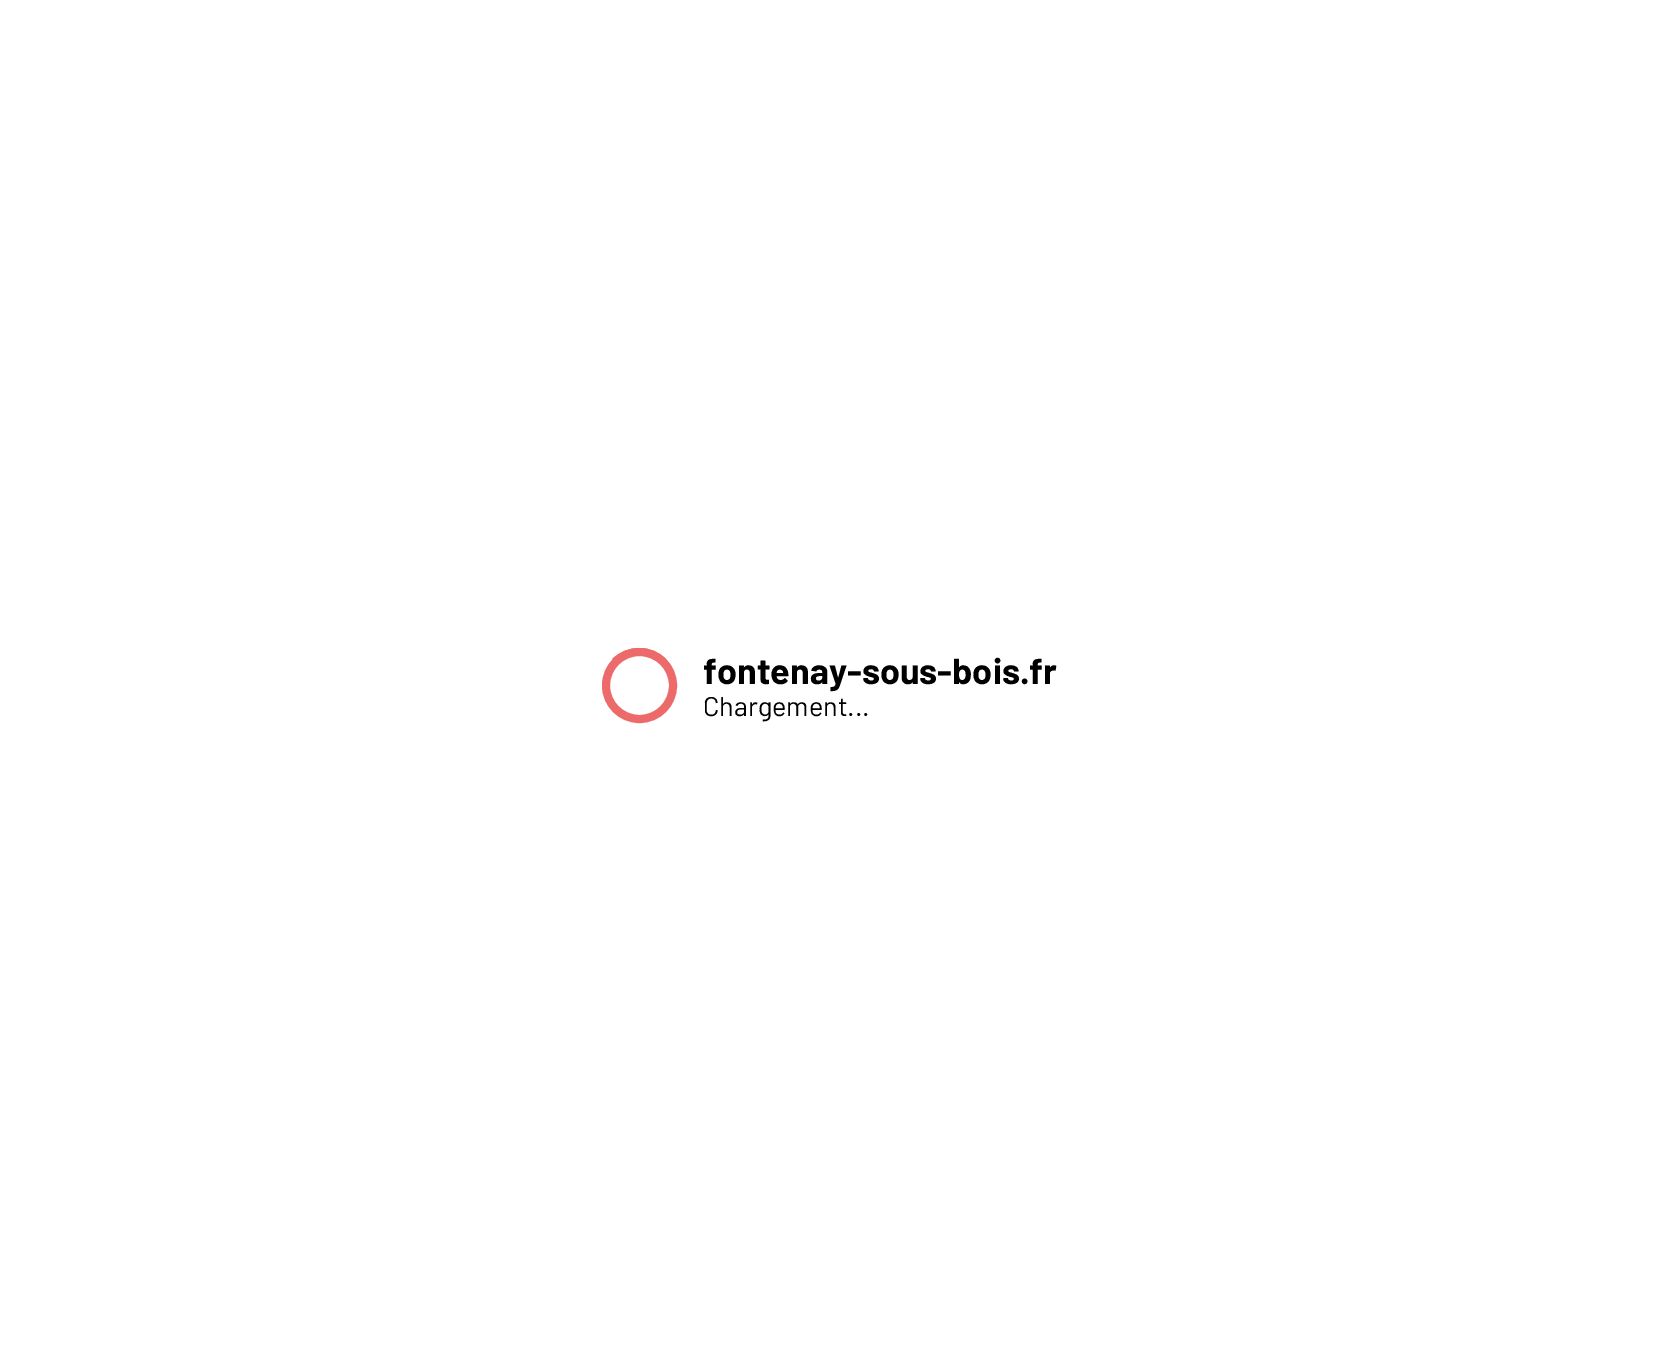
%!PS-Adobe-3.0
%%BoundingBox: 0 0 1658 1371
%%LanguageLevel: 3
%%Pages: 1
%%EndComments
%%BeginProlog
/m { moveto } bind def
/c { curveto } bind def
/S { stroke } bind def
/w { setlinewidth } bind def
/fn { [ exch dup neg 0 0 3 -1 roll 0 0 ] selectfont } def
/tx { moveto show } def
/bx { rectfill } def
/ci { newpath 0 360 arc closepath } def
%%EndProlog
%%BeginSetup
<< /PageSize [1658 1371] >> setpagedevice
%%EndSetup
%%Page: 1 1
0 1371 translate 1 -1 scale
4 setmiterlimit
1 setgray
0 0 1658 1371 bx
0.925 0.416 0.416 setrgbcolor
8 w
639.5 685.5 33.5 ci S
7.5 w
615 661.5 m 628 648.5 650 648.5 663 661.5 c S
/Barlow-Bold 36 fn
0 setgray
(fontenay-sous-bois.fr) 703 684 tx
/Barlow-Regular 27 fn
(Chargement...) 703 716 tx
showpage
%%EOF
